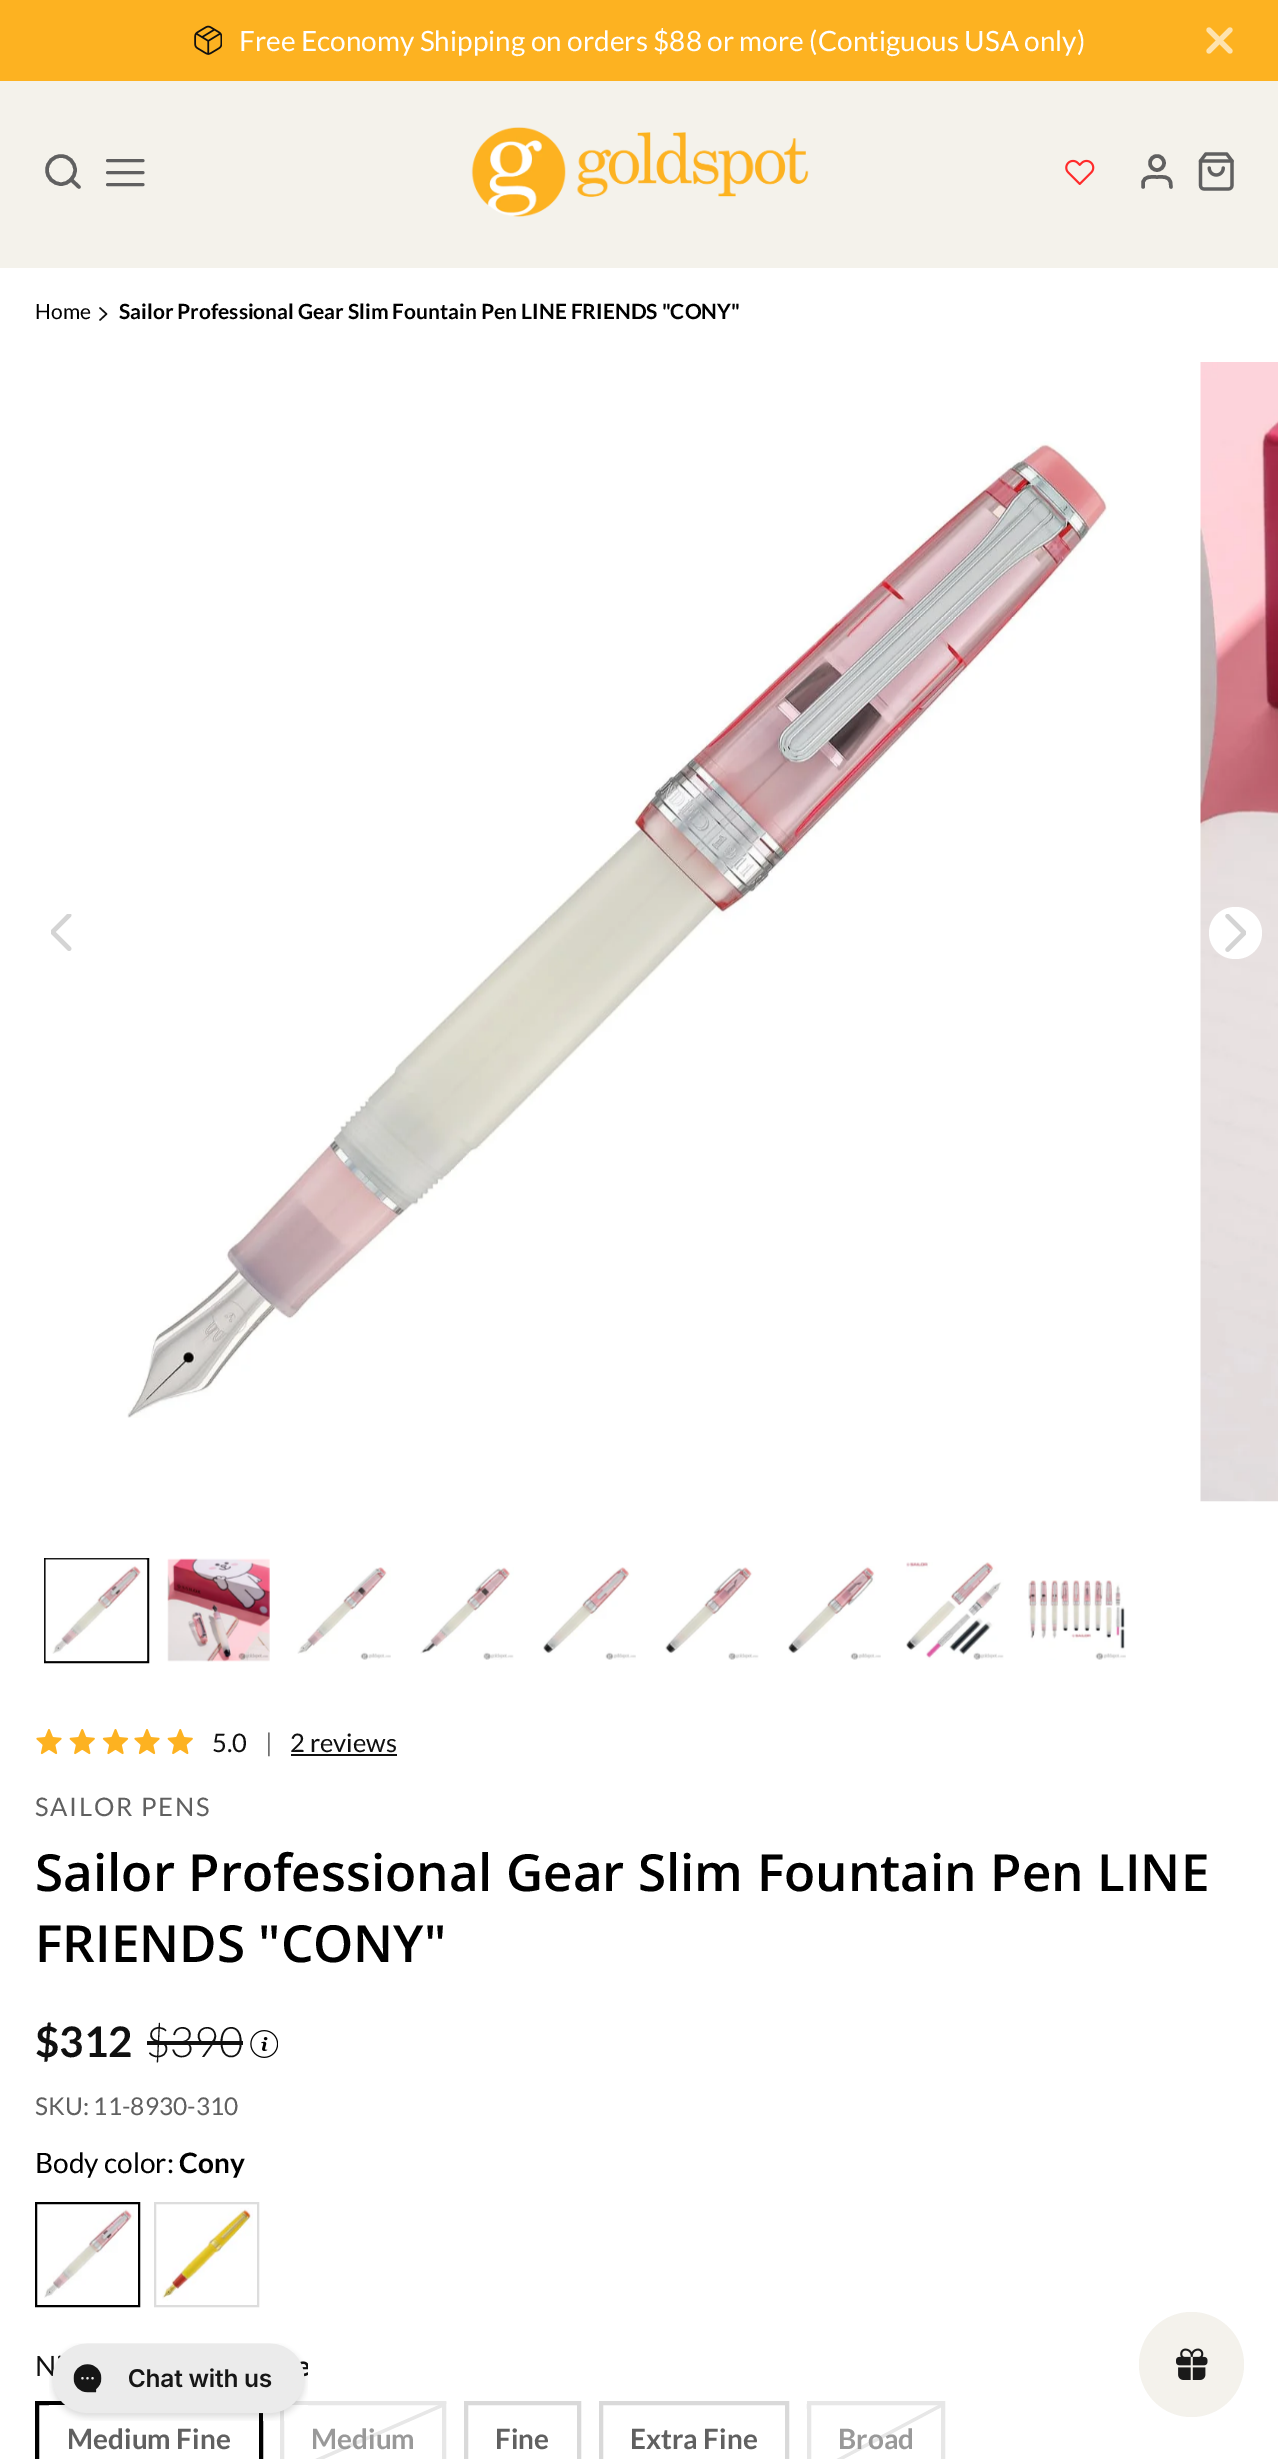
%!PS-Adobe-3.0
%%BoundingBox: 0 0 1278 2459
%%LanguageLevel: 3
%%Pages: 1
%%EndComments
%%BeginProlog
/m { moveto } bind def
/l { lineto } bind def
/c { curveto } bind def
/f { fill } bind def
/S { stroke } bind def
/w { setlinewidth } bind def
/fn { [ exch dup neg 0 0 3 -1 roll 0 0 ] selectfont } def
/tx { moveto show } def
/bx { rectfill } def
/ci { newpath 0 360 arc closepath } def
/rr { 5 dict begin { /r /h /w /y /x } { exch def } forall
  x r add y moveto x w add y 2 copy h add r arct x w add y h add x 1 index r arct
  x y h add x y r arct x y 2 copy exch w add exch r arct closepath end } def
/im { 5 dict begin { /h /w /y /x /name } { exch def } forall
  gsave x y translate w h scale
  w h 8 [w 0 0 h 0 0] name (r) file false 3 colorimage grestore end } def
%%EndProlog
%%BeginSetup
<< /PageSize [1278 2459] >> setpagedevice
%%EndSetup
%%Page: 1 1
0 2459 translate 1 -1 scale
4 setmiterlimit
1 setgray
0 0 1278 2459 bx
0.992 0.698 0.129 setrgbcolor
0 0 1278 81 bx
(image0.raw) 194 25 28 30 im
/Lato-Regular 28 fn
1 setgray
(Free Economy Shipping on orders $88 or more \(Contiguous USA only\)) 239 51 tx
0.996 0.89 0.686 setrgbcolor
5.2 w
1 setlinecap
1 setlinejoin
1230 30 m 1209 51 l 1209 30 m 1230 51 l S
0.957 0.949 0.922 setrgbcolor
0 81 1278 187 bx
0.376 setgray
3.5 w
0 setlinecap
0 setlinejoin
61 170 14 ci S
1 setlinecap
1 setlinejoin
79 187 m 71 179.5 l S
3 w
107.5 172.5 m 143 172.5 l 107.5 160.5 m 143 160.5 l 107.5 184.5 m 143 184.5 l S
(image1.raw) 471 127 338 90 im
(image2.raw) 1065 159 30 26 im
3.5 w
0 setlinecap
0 setlinejoin
1157 163 7 ci S
1 setlinecap
1 setlinejoin
1171 187 m 1170.5 182.5 l 1169 175.5 1162 177 1157 177 c 1151.5 177 1144.5 175.5 1143 182.5 c 1143 187 l S
(image3.raw) 1198 152 36 39 im
/Lato-Regular 21 fn
0 setgray
(Home) 35 319 tx
0.063 setgray
1.5 w
100 320 m 106.5 314 l 100 308 l S
/Lato-Bold 21 fn
0 setgray
(Sailor Professional Gear Slim Fountain Pen LINE FRIENDS "CONY") 119 319 tx
(image4.raw) 127 441 983 977 im
(image5.raw) 1200 362 78 1140 im
(image6.raw) 51 914 21 37 im
1 setgray
1209 907 53 52 26 rr f
(image7.raw) 1225 914 21 38 im
0 setgray
2 w
0 setlinecap
0 setlinejoin
45 1559 103 103 rectstroke
(image8.raw) 44 1558 104 104 im
(image9.raw) 167 1558 103 104 im
(image10.raw) 297 1567 94 93 im
(image11.raw) 420 1567 94 93 im
(image12.raw) 543 1567 93 93 im
(image13.raw) 665 1567 94 93 im
(image14.raw) 788 1566 93 94 im
(image15.raw) 906 1562 98 98 im
(image16.raw) 1028 1580 98 80 im
(image17.raw) 36 1729 26 26 im
(image18.raw) 69 1729 26 26 im
(image19.raw) 102 1729 27 26 im
(image17.raw) 134 1729 26 26 im
(image18.raw) 167 1729 26 26 im
/Lato-Regular 25.5 fn
0.063 setgray
(5.0) 212 1752 tx
0.439 setgray
(|) 265 1752 tx
0.063 setgray
(2 reviews) 290 1752 tx
291 1754 106 2 bx
0.376 setgray
35 1816 m 1.75 0 (SAILOR PENS) ashow
/OpenSans-SemiBold 51.2 fn
0 setgray
(Sailor Professional Gear Slim Fountain Pen LINE) 35 1891 tx
(FRIENDS "CONY") 35 1962 tx
/Lato-Bold 42 fn
0.063 setgray
($312) 35 2057 tx
/Lato-Light 42 fn
($390) 146 2057 tx
147 2041 96 4 bx
(image20.raw) 250 2030 28 28 im
/Lato-Regular 24.5 fn
0.376 setgray
(SKU: 11-8930-310) 35 2115 tx
/Lato-Regular 28 fn
0 setgray
(Body color:) 35 2173 tx
/Lato-Bold 28 fn
(Cony) 179 2173 tx
(image21.raw) 44 2209 90 89 im
36 2203 103 103 rectstroke
(image22.raw) 162 2208 91 93 im
0.867 setgray
155 2203 103 103 rectstroke
/Lato-Regular 28 fn
0.063 setgray
(N) 35 2376 tx
0 setgray
4 w
37 2403 224 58 rectstroke
/Lato-Bold 28 fn
0.376 setgray
(Medium Fine) 67 2449 tx
(image23.raw) 315 2401 132 58 im
0.906 setgray
282 2403 162 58 rectstroke
0.6 setgray
(Medium) 311 2449 tx
0.851 setgray
466 2403 113 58 rectstroke
0.376 setgray
(Fine) 495 2449 tx
0.851 setgray
601 2403 186 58 rectstroke
0.376 setgray
(Extra Fine) 630 2449 tx
(image24.raw) 806 2404 135 55 im
0.906 setgray
809 2403 134 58 rectstroke
0.6 setgray
(Broad) 838 2449 tx
(image25.raw) 49 2343 259 78 im
0.957 0.949 0.925 setrgbcolor
1191.5 2364.5 52.5 ci f
(image26.raw) 1176 2348 32 32 im
showpage
%%EOF
